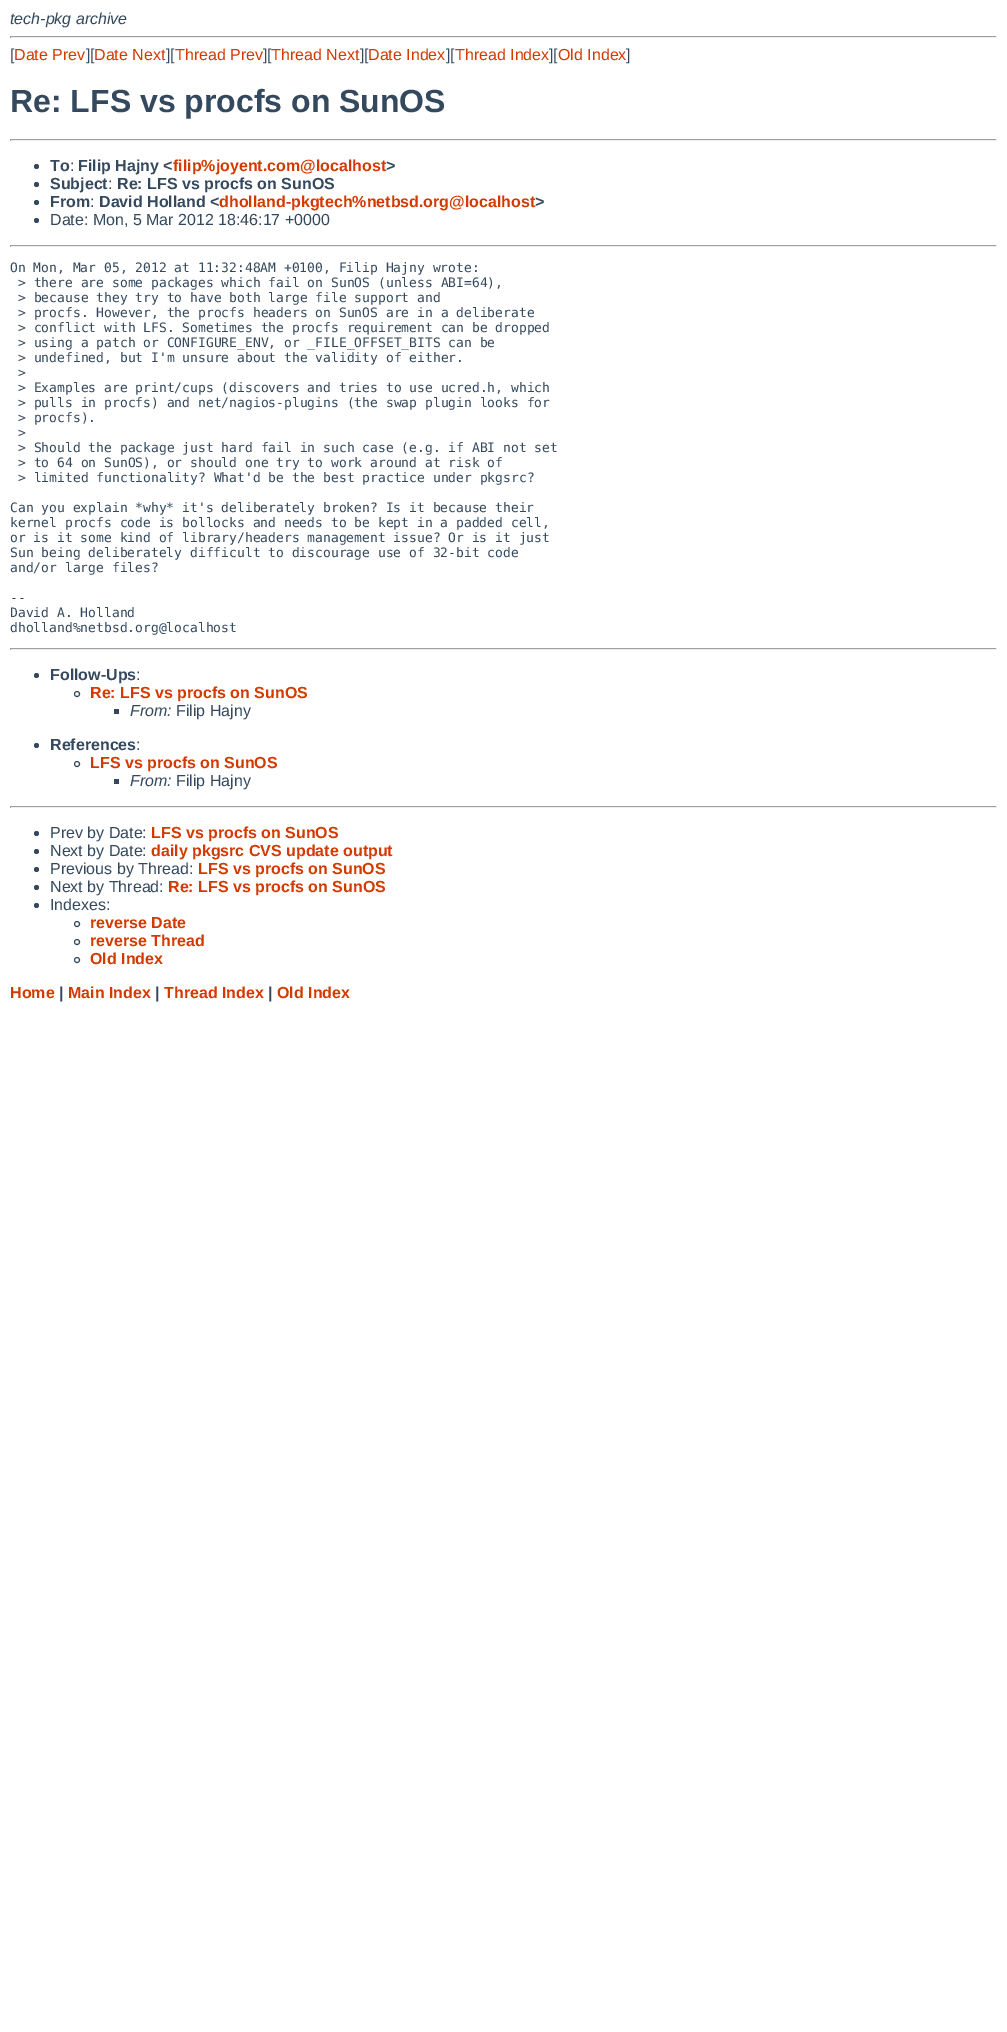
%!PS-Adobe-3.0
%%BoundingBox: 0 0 1007 2032
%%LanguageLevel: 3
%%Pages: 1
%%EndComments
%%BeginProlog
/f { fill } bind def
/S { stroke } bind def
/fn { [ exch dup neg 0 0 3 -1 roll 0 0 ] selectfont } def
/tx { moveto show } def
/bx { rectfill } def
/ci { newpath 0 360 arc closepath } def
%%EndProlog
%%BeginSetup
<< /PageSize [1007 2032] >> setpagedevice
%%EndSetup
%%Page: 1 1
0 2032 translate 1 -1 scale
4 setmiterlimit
1 setgray
0 0 1007 2032 bx
/LiberationSans-Italic 16 fn
0.204 0.286 0.369 setrgbcolor
(tech-pkg archive) 10 24 tx
0.624 setgray
10 36 987 1 bx
0.933 setgray
996 36 1 2 bx
10 37 987 1 bx
0.624 setgray
10 36 1 2 bx
/LiberationSans-Regular 16 fn
0.204 0.286 0.369 setrgbcolor
([) 10 60 tx
0.831 0.224 0 setrgbcolor
(Date Prev) 14 60 tx
0.204 0.286 0.369 setrgbcolor
(][) 86 60 tx
0.831 0.224 0 setrgbcolor
(Date Next) 94 60 tx
0.204 0.286 0.369 setrgbcolor
(][) 166 60 tx
0.831 0.224 0 setrgbcolor
(Thread Prev) 175 60 tx
0.204 0.286 0.369 setrgbcolor
(][) 263 60 tx
0.831 0.224 0 setrgbcolor
(Thread Next) 271 60 tx
0.204 0.286 0.369 setrgbcolor
(][) 360 60 tx
0.831 0.224 0 setrgbcolor
(Date Index) 368 60 tx
0.204 0.286 0.369 setrgbcolor
(][) 446 60 tx
0.831 0.224 0 setrgbcolor
(Thread Index) 455 60 tx
0.204 0.286 0.369 setrgbcolor
(][) 549 60 tx
0.831 0.224 0 setrgbcolor
(Old Index) 558 60 tx
0.204 0.286 0.369 setrgbcolor
(]) 626 60 tx
/LiberationSans-Bold 32 fn
(Re: LFS vs procfs on SunOS) 10 112 tx
0.624 setgray
10 139 987 1 bx
0.933 setgray
996 139 1 2 bx
10 140 987 1 bx
0.624 setgray
10 139 1 2 bx
0.204 0.286 0.369 setrgbcolor
36.5 166.5 2.5 ci f
/LiberationSans-Bold 16 fn
(To) 50 171 tx
/LiberationSans-Regular 16 fn
(:) 70 171 tx
/LiberationSans-Bold 16 fn
(Filip Hajny <) 78 171 tx
0.831 0.224 0 setrgbcolor
(filip%joyent.com@localhost) 173 171 tx
0.204 0.286 0.369 setrgbcolor
(>) 386 171 tx
36.5 184.5 2.5 ci f
(Subject) 50 189 tx
/LiberationSans-Regular 16 fn
(:) 108 189 tx
/LiberationSans-Bold 16 fn
(Re: LFS vs procfs on SunOS) 117 189 tx
36.5 202.5 2.5 ci f
(From) 50 207 tx
/LiberationSans-Regular 16 fn
(:) 90 207 tx
/LiberationSans-Bold 16 fn
(David Holland <) 99 207 tx
0.831 0.224 0 setrgbcolor
(dholland-pkgtech%netbsd.org@localhost) 219 207 tx
0.204 0.286 0.369 setrgbcolor
(>) 535 207 tx
36.5 220.5 2.5 ci f
/LiberationSans-Regular 16 fn
(Date: Mon, 5 Mar 2012 18:46:17 +0000) 50 225 tx
0.624 setgray
10 245 987 1 bx
0.933 setgray
996 245 1 2 bx
10 246 987 1 bx
0.624 setgray
10 245 1 2 bx
/DejaVuSansMono-Regular 13 fn
0.204 0.286 0.369 setrgbcolor
(On Mon, Mar 05, 2012 at 11:32:48AM +0100, Filip Hajny wrote:) 10 272 tx
(> there are some packages which fail on SunOS \(unless ABI=64\),) 18 287 tx
(> because they try to have both large file support and) 18 302 tx
(> procfs. However, the procfs headers on SunOS are in a deliberate) 18 317 tx
(> conflict with LFS. Sometimes the procfs requirement can be dropped) 18 332 tx
(> using a patch or CONFIGURE_ENV, or _FILE_OFFSET_BITS can be) 18 347 tx
(> undefined, but I'm unsure about the validity of either.) 18 362 tx
(>) 18 377 tx
(> Examples are print/cups \(discovers and tries to use ucred.h, which) 18 392 tx
(> pulls in procfs\) and net/nagios-plugins \(the swap plugin looks for) 18 407 tx
(> procfs\).) 18 422 tx
(>) 18 437 tx
(> Should the package just hard fail in such case \(e.g. if ABI not set) 18 452 tx
(> to 64 on SunOS\), or should one try to work around at risk of) 18 467 tx
(> limited functionality? What'd be the best practice under pkgsrc?) 18 482 tx
(Can you explain *why* it's deliberately broken? Is it because their) 10 512 tx
(kernel procfs code is bollocks and needs to be kept in a padded cell,) 10 527 tx
(or is it some kind of library/headers management issue? Or is it just) 10 542 tx
(Sun being deliberately difficult to discourage use of 32-bit code) 10 557 tx
(and/or large files?) 10 572 tx
(--) 10 602 tx
(David A. Holland) 10 617 tx
(dholland%netbsd.org@localhost) 10 632 tx
0.624 setgray
10 648 987 1 bx
0.933 setgray
996 648 1 2 bx
10 649 987 1 bx
0.624 setgray
10 648 1 2 bx
0.204 0.286 0.369 setrgbcolor
36.5 675.5 2.5 ci f
/LiberationSans-Bold 16 fn
(Follow-Ups) 50 680 tx
/LiberationSans-Regular 16 fn
(:) 136 680 tx
77 694 2.5 ci S
/LiberationSans-Bold 16 fn
0.831 0.224 0 setrgbcolor
(Re: LFS vs procfs on SunOS) 90 698 tx
0.204 0.286 0.369 setrgbcolor
114 709 5 5 bx
/LiberationSans-Italic 16 fn
(From:) 130 716 tx
/LiberationSans-Regular 16 fn
(Filip Hajny) 176 716 tx
36.5 745.5 2.5 ci f
/LiberationSans-Bold 16 fn
(References) 50 750 tx
/LiberationSans-Regular 16 fn
(:) 136 750 tx
77 764 2.5 ci S
/LiberationSans-Bold 16 fn
0.831 0.224 0 setrgbcolor
(LFS vs procfs on SunOS) 90 768 tx
0.204 0.286 0.369 setrgbcolor
114 779 5 5 bx
/LiberationSans-Italic 16 fn
(From:) 130 786 tx
/LiberationSans-Regular 16 fn
(Filip Hajny) 176 786 tx
0.624 setgray
10 806 987 1 bx
0.933 setgray
996 806 1 2 bx
10 807 987 1 bx
0.624 setgray
10 806 1 2 bx
0.204 0.286 0.369 setrgbcolor
36.5 833.5 2.5 ci f
(Prev by Date:) 50 838 tx
/LiberationSans-Bold 16 fn
0.831 0.224 0 setrgbcolor
(LFS vs procfs on SunOS) 151 838 tx
0.204 0.286 0.369 setrgbcolor
36.5 851.5 2.5 ci f
/LiberationSans-Regular 16 fn
(Next by Date:) 50 856 tx
/LiberationSans-Bold 16 fn
0.831 0.224 0 setrgbcolor
(daily pkgsrc CVS update output) 151 856 tx
0.204 0.286 0.369 setrgbcolor
36.5 869.5 2.5 ci f
/LiberationSans-Regular 16 fn
(Previous by Thread:) 50 874 tx
/LiberationSans-Bold 16 fn
0.831 0.224 0 setrgbcolor
(LFS vs procfs on SunOS) 198 874 tx
0.204 0.286 0.369 setrgbcolor
36.5 887.5 2.5 ci f
/LiberationSans-Regular 16 fn
(Next by Thread:) 50 892 tx
/LiberationSans-Bold 16 fn
0.831 0.224 0 setrgbcolor
(Re: LFS vs procfs on SunOS) 168 892 tx
0.204 0.286 0.369 setrgbcolor
36.5 905.5 2.5 ci f
/LiberationSans-Regular 16 fn
(Indexes:) 50 910 tx
77 924 2.5 ci S
/LiberationSans-Bold 16 fn
0.831 0.224 0 setrgbcolor
(reverse Date) 90 928 tx
0.204 0.286 0.369 setrgbcolor
77 942 2.5 ci S
0.831 0.224 0 setrgbcolor
(reverse Thread) 90 946 tx
0.204 0.286 0.369 setrgbcolor
77 960 2.5 ci S
0.831 0.224 0 setrgbcolor
(Old Index) 90 964 tx
(Home) 10 998 tx
0.204 0.286 0.369 setrgbcolor
(|) 59 998 tx
0.831 0.224 0 setrgbcolor
(Main Index) 68 998 tx
0.204 0.286 0.369 setrgbcolor
(|) 155 998 tx
0.831 0.224 0 setrgbcolor
(Thread Index) 164 998 tx
0.204 0.286 0.369 setrgbcolor
(|) 268 998 tx
0.831 0.224 0 setrgbcolor
(Old Index) 277 998 tx
showpage
%%EOF
